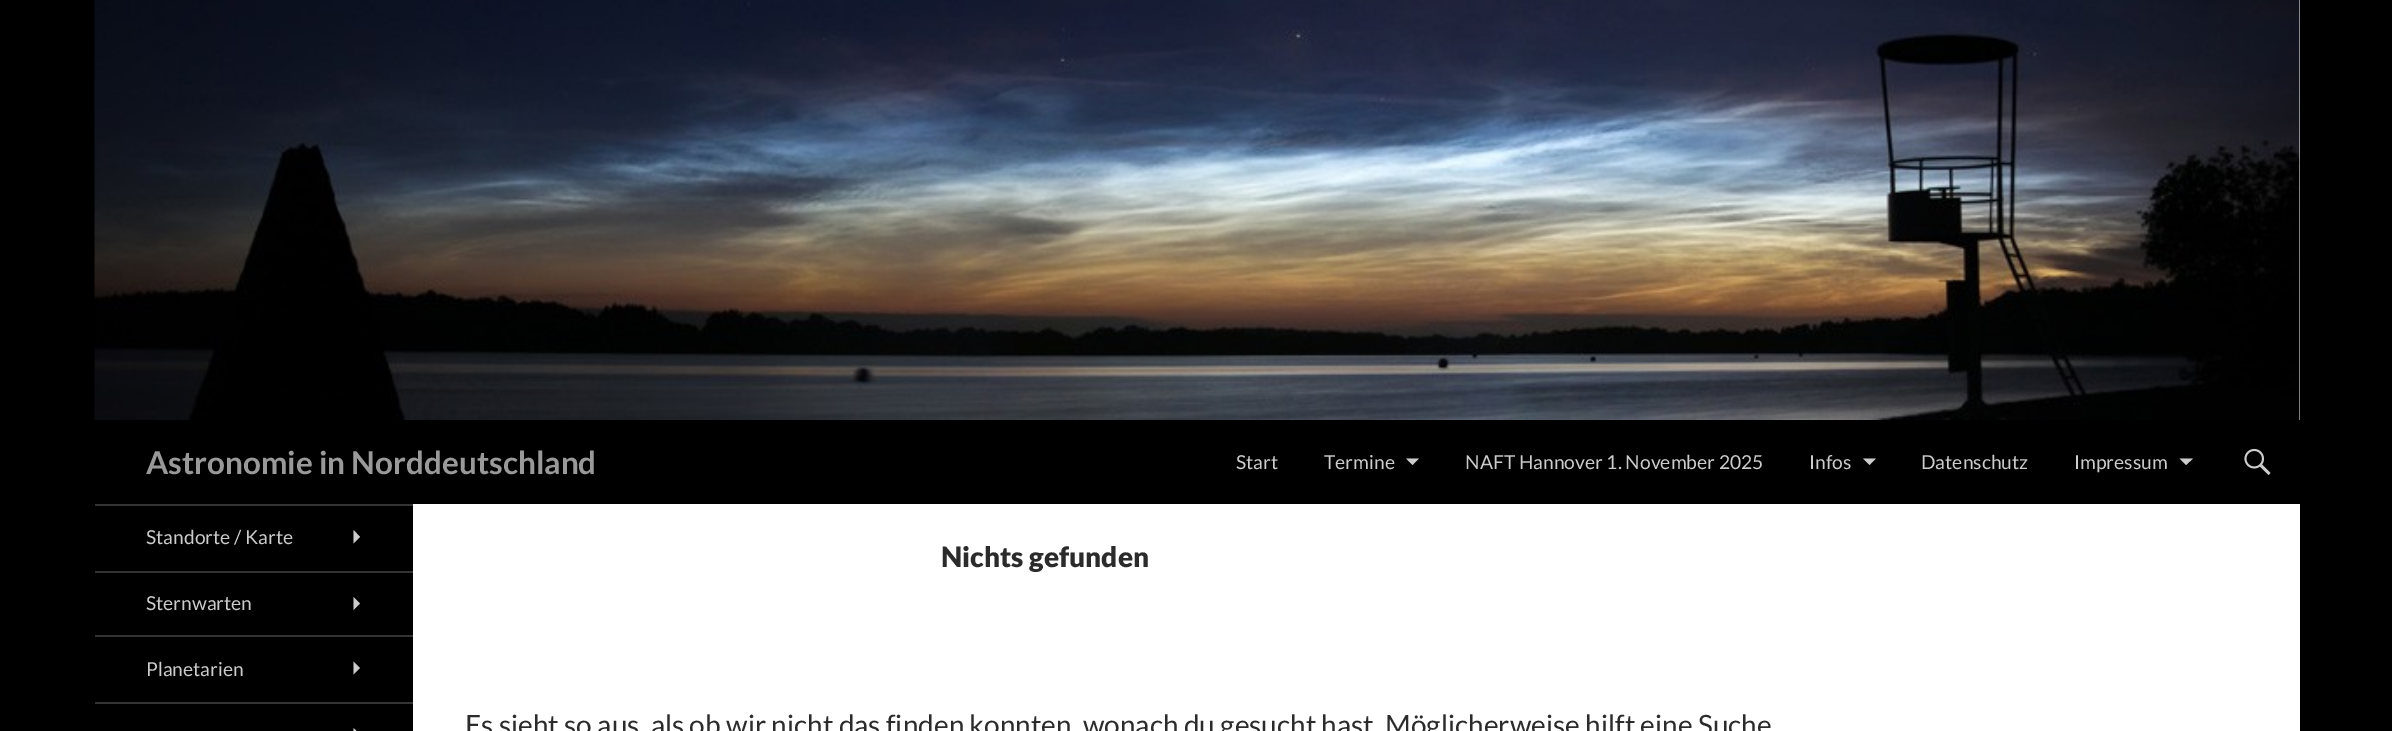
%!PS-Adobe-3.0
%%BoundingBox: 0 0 2392 731
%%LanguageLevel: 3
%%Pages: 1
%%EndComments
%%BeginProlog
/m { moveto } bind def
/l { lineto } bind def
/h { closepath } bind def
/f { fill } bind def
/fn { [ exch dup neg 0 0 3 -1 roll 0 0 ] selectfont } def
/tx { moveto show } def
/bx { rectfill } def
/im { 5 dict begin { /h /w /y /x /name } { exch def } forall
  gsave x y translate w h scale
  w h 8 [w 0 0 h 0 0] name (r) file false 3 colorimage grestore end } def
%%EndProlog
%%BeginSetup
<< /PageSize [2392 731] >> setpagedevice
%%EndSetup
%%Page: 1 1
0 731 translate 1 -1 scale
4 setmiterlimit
0 setgray
0 0 2392 731 bx
1 setgray
413 0 1887 731 bx
(image0.raw) 94 0 2206 420 im
0 setgray
413 420 1887 84 bx
/Lato-Bold 31.5 fn
0.6 setgray
(Astronomie in Norddeutschland) 146 474 tx
/Lato-Regular 19.25 fn
0.8 setgray
(Start) 1236 469 tx
(Termine) 1324 469 tx
1406 458.5 m 1412.5 465 l 1419 458.5 l h f
(NAFT Hannover 1. November 2025) 1465 469 tx
(Infos) 1809 469 tx
1863 458.5 m 1869.5 465 l 1876 458.5 l h f
(Datenschutz) 1921 469 tx
(Impressum) 2074 469 tx
2179.5 458.5 m 2186 465 l 2193 458.5 l h f
(image1.raw) 2244 448 27 27 im
0.2 setgray
95 504 318 2 bx
0.8 setgray
(Standorte / Karte) 146 544 tx
353.5 543.5 m 360 537 l 353.5 530 l h f
0.2 setgray
95 571 318 2 bx
0.8 setgray
(Sternwarten) 146 610 tx
353.5 610 m 360 603.5 l 353.5 597 l h f
0.2 setgray
95 635 318 2 bx
0.8 setgray
(Planetarien) 146 676 tx
353.5 674.5 m 360 668 l 353.5 661.5 l h f
0.2 setgray
95 702 318 2 bx
0.8 setgray
353.5 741 m 360 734.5 l 353.5 728 l h f
/Lato-Black 28 fn
0.169 setgray
(Nichts gefunden) 941 567 tx
/Lato-Regular 28 fn
(Es sieht so aus, als ob wir nicht das finden konnten, wonach du gesucht hast. Möglicherweise hilft eine Suche) 465 735 tx
showpage
%%EOF
